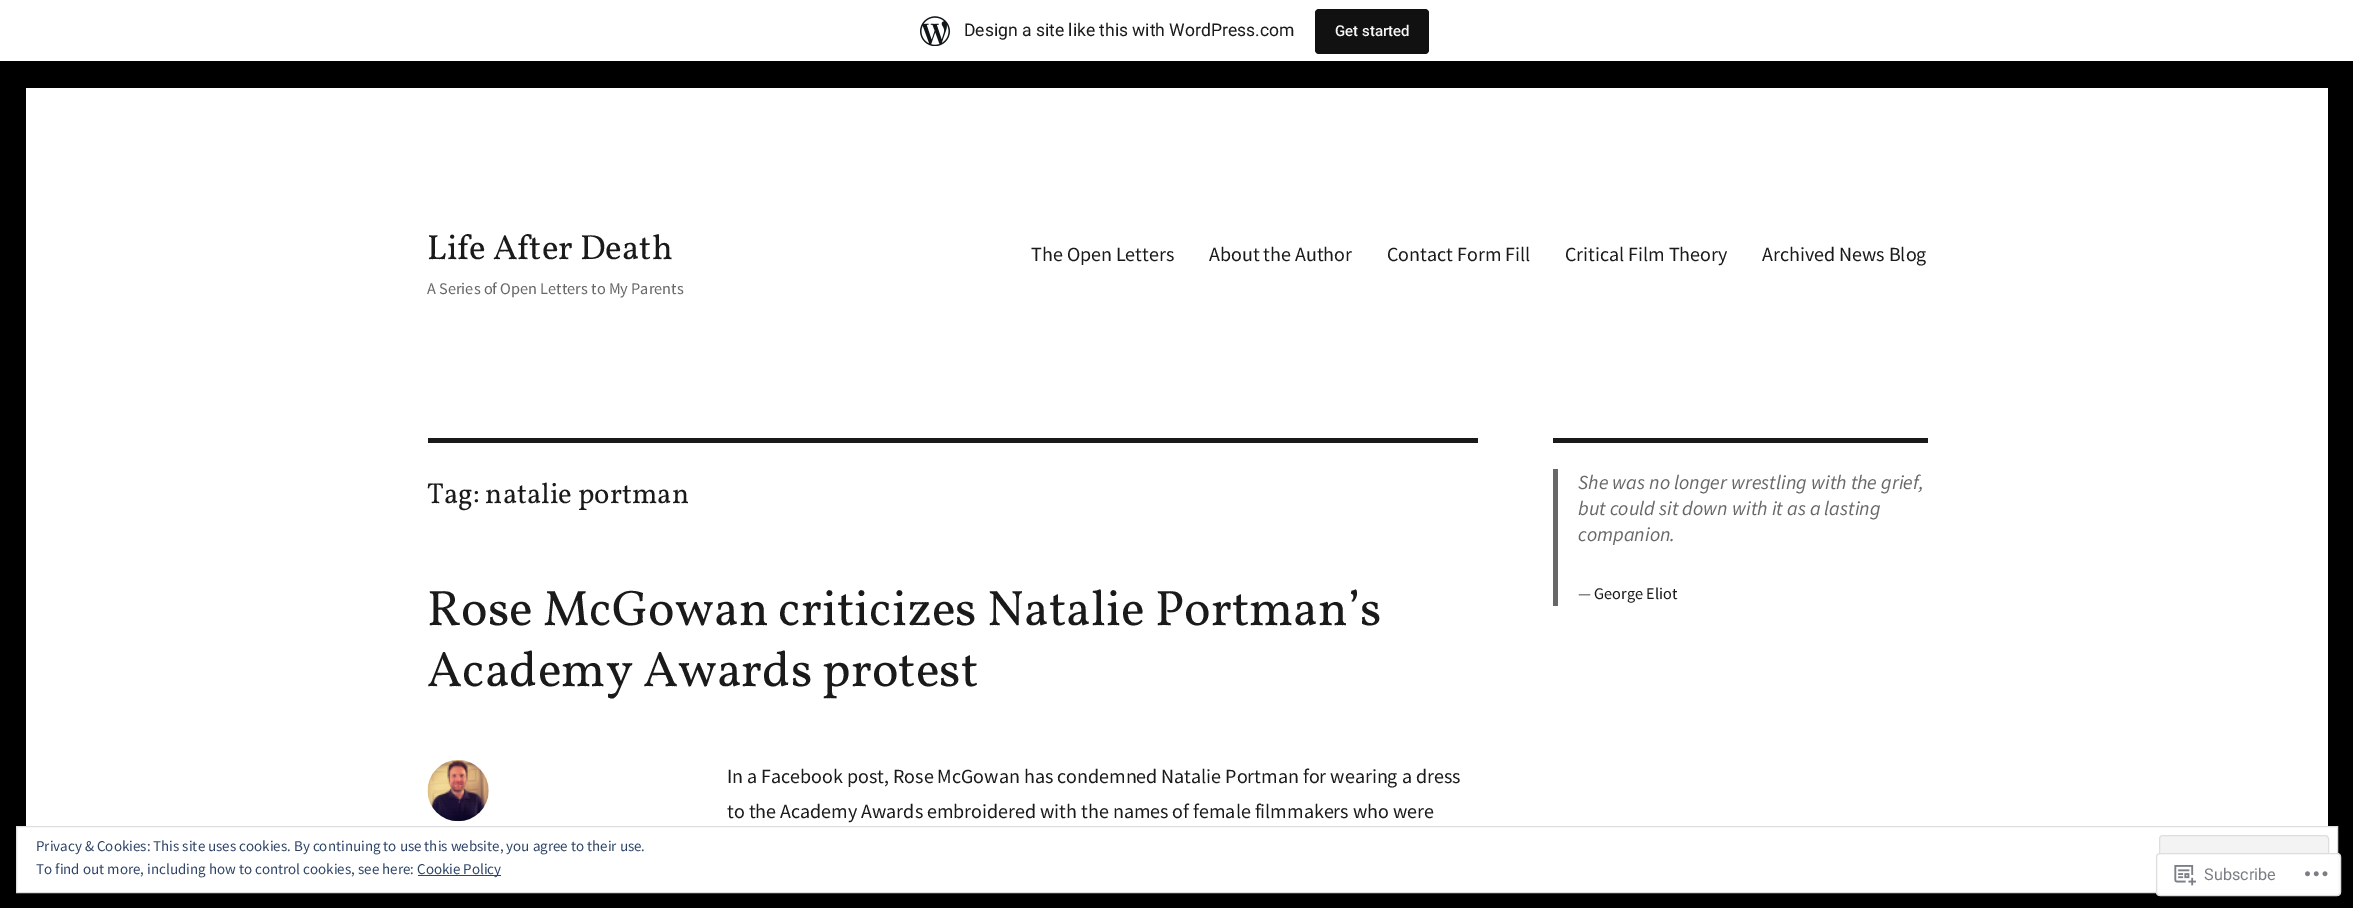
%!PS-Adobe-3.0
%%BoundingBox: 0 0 2353 908
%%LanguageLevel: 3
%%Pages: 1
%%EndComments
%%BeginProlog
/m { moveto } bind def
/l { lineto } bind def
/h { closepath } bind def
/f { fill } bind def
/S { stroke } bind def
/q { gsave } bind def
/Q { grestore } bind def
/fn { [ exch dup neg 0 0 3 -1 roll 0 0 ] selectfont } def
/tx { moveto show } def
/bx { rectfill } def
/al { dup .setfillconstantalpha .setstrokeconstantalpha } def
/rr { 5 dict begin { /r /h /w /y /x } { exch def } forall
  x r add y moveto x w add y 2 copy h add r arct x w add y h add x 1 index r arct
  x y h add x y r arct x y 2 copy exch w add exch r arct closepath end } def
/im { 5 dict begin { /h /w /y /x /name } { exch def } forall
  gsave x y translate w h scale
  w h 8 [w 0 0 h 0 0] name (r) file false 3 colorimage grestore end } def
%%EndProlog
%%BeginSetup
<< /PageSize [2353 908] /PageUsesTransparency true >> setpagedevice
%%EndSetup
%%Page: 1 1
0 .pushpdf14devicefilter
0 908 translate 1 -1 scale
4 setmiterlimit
0 setgray
0 0 2353 908 bx
1 setgray
0 0 2353 61 bx
(image0.raw) 920 16 30 30 im
/Roboto-Regular 17.5 fn
0.102 setgray
(Design a site like this with WordPress.com) 964 36 tx
0.067 setgray
1315 9 114 45 4 rr f
/Roboto-Medium 15 fn
0.965 0.969 0.969 setrgbcolor
(Get started) 1335 36 tx
1 setgray
26 88 2302 738 bx
/Vollkorn-Regular 35 fn
0.102 setgray
(Life After Death) 427 259 tx
/SourceSansPro-Regular 16.25 fn
0.408 setgray
(A Series of Open Letters to My Parents) 427 294 tx
/SourceSansPro-Regular 20 fn
0.102 setgray
(The Open Letters) 1031 261 tx
(About the Author) 1209 261 tx
(Contact Form Fill) 1387 261 tx
(Critical Film Theory) 1565 261 tx
(Archived News Blog) 1762 261 tx
428 438 1050 5 bx
/Vollkorn-Regular 28.75 fn
(Tag: natalie portman) 427 503 tx
/Vollkorn-Regular 50 fn
(Rose McGowan criticizes Natalie Portman’s) 427 625 tx
(Academy Awards protest) 427 686 tx
(image1.raw) 427 760 62 62 im
/SourceSansPro-Regular 20 fn
(In a Facebook post, Rose McGowan has condemned Natalie Portman for wearing a dress) 727 783 tx
(to the Academy Awards embroidered with the names of female filmmakers who were) 727 818 tx
1553 438 375 5 bx
0.408 setgray
1553 469 5 137 bx
/SourceSansPro-Italic 20 fn
(She was no longer wrestling with the grief,) 1578 489 tx
(but could sit down with it as a lasting) 1578 515 tx
(companion.) 1578 541 tx
/SourceSansPro-Regular 16.25 fn
0.102 setgray
(— George Eliot) 1578 599 tx
1 setgray
16.5 826.5 m 2337.5 826.5 l 2337.5 892.5 l 16.5 892.5 l h q f Q
0.871 setgray
S
/SourceSansPro-Regular 15 fn
0.18 0.267 0.404 setrgbcolor
(Privacy & Cookies: This site uses cookies. By continuing to use this website, you agree to their use.) 36 851 tx
0.953 setgray
2159.5 835.5 169 48 3.5 rr q f Q
0.871 setgray
S
0.18 0.267 0.404 setrgbcolor
(To find out more, including how to control cookies, see here:) 36 874 tx
418 875 83 1 bx
(Cookie Policy) 417 874 tx
0.98 al
1 setgray
2156 853 185 43 4 rr f
0.863 0.863 0.871 setrgbcolor
2156.5 853.5 184 42 3.5 rr S
1 al
(image2.raw) 2174 865 22 21 im
/Roboto-Regular 16.25 fn
0.478 0.494 0.518 setrgbcolor
(Subscribe) 2204 880 tx
(image3.raw) 2305 871 23 6 im
.poppdf14devicefilter showpage
%%EOF
